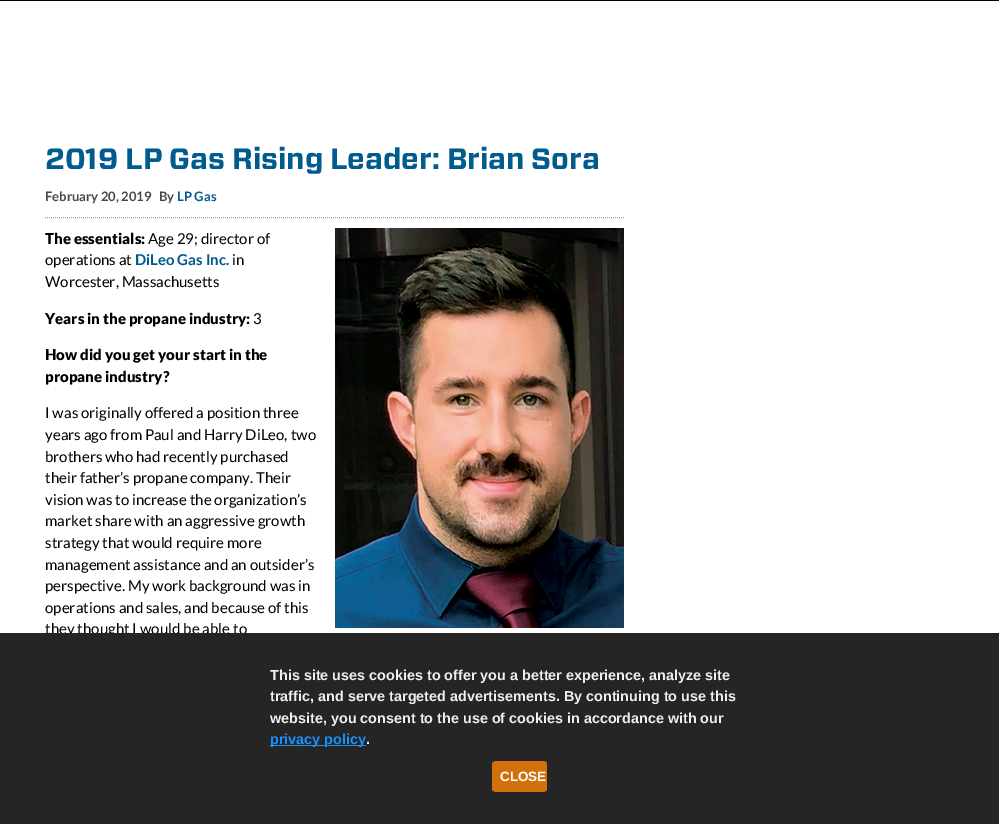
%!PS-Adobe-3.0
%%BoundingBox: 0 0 999 824
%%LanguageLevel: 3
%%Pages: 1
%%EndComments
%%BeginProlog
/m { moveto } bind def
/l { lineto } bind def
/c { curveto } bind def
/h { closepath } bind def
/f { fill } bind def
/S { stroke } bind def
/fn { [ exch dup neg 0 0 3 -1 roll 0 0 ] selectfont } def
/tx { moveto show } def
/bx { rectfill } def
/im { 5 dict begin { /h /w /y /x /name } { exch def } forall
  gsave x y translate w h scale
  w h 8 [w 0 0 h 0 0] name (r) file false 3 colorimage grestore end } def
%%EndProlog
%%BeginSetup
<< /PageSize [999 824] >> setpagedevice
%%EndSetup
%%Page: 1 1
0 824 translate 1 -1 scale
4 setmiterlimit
1 setgray
0 0 999 824 bx
0 setgray
0 0 999 1 bx
/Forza-Bold 29.3 fn
0 0.357 0.561 setrgbcolor
(2019 LP Gas Rising Leader: Brian Sora) 45 169 tx
0.6 setgray
[1 1] 0 setdash
45 217.5 m 624 217.5 l S
/Lato-Bold 13 fn
0.278 setgray
(February 20, 2019) 45 201 tx
(By) 159 201 tx
0 0.357 0.561 setrgbcolor
(LP Gas) 177 201 tx
/Lato-Black 15 fn
0 setgray
(The essentials:) 45 244 tx
(image0.raw) 335 228 289 400 im
/Lato-Regular 15 fn
(Age 29; director of) 148 244 tx
(operations at) 45 265 tx
/Lato-Bold 15 fn
0 0.357 0.561 setrgbcolor
(DiLeo Gas Inc.) 135 265 tx
/Lato-Regular 15 fn
0 setgray
(in) 232 265 tx
(Worcester, Massachusetts) 45 287 tx
/Lato-Black 15 fn
(Years in the propane industry:) 45 324 tx
/Lato-Regular 15 fn
(3) 253 324 tx
/Lato-Black 15 fn
(How did you get your start in the) 45 360 tx
(propane industry?) 45 382 tx
/Lato-Regular 15 fn
(I was originally offered a position three) 45 418 tx
(years ago from Paul and Harry DiLeo, two) 45 440 tx
(brothers who had recently purchased) 45 462 tx
(their father’s propane company. Their) 45 483 tx
(vision was to increase the organization’s) 45 505 tx
(market share with an aggressive growth) 45 526 tx
(strategy that would require more) 45 548 tx
(management assistance and an outsider’s) 45 570 tx
(perspective. My work background was in) 45 591 tx
(operations and sales, and because of this) 45 613 tx
(they thought I would be able to) 45 634 tx
0.145 setgray
0 633 999 191 bx
/LiberationSans-Bold 14.4 fn
0.925 0.941 0.945 setrgbcolor
(This site uses cookies to offer you a better experience, analyze site) 270 680 tx
(traffic, and serve targeted advertisements. By continuing to use this) 270 701 tx
(website, you consent to the use of cookies in accordance with our) 270 723 tx
0.102 0.569 0.976 setrgbcolor
270 745 96 1 bx
(privacy policy) 270 744 tx
0.925 0.941 0.945 setrgbcolor
(.) 366 744 tx
0.824 0.439 0.047 setrgbcolor
498 761 m 542 761 l 545 761 547 762 547 764 c 547 789 l 547 791 545 792 542 792 c 498 792 l 494 792 492 791 492 789 c 492 764 l 492 762 494 761 498 761 c h f
/LiberationSans-Bold 13.5 fn
1 setgray
(CLOSE) 500 781 tx
showpage
%%EOF
